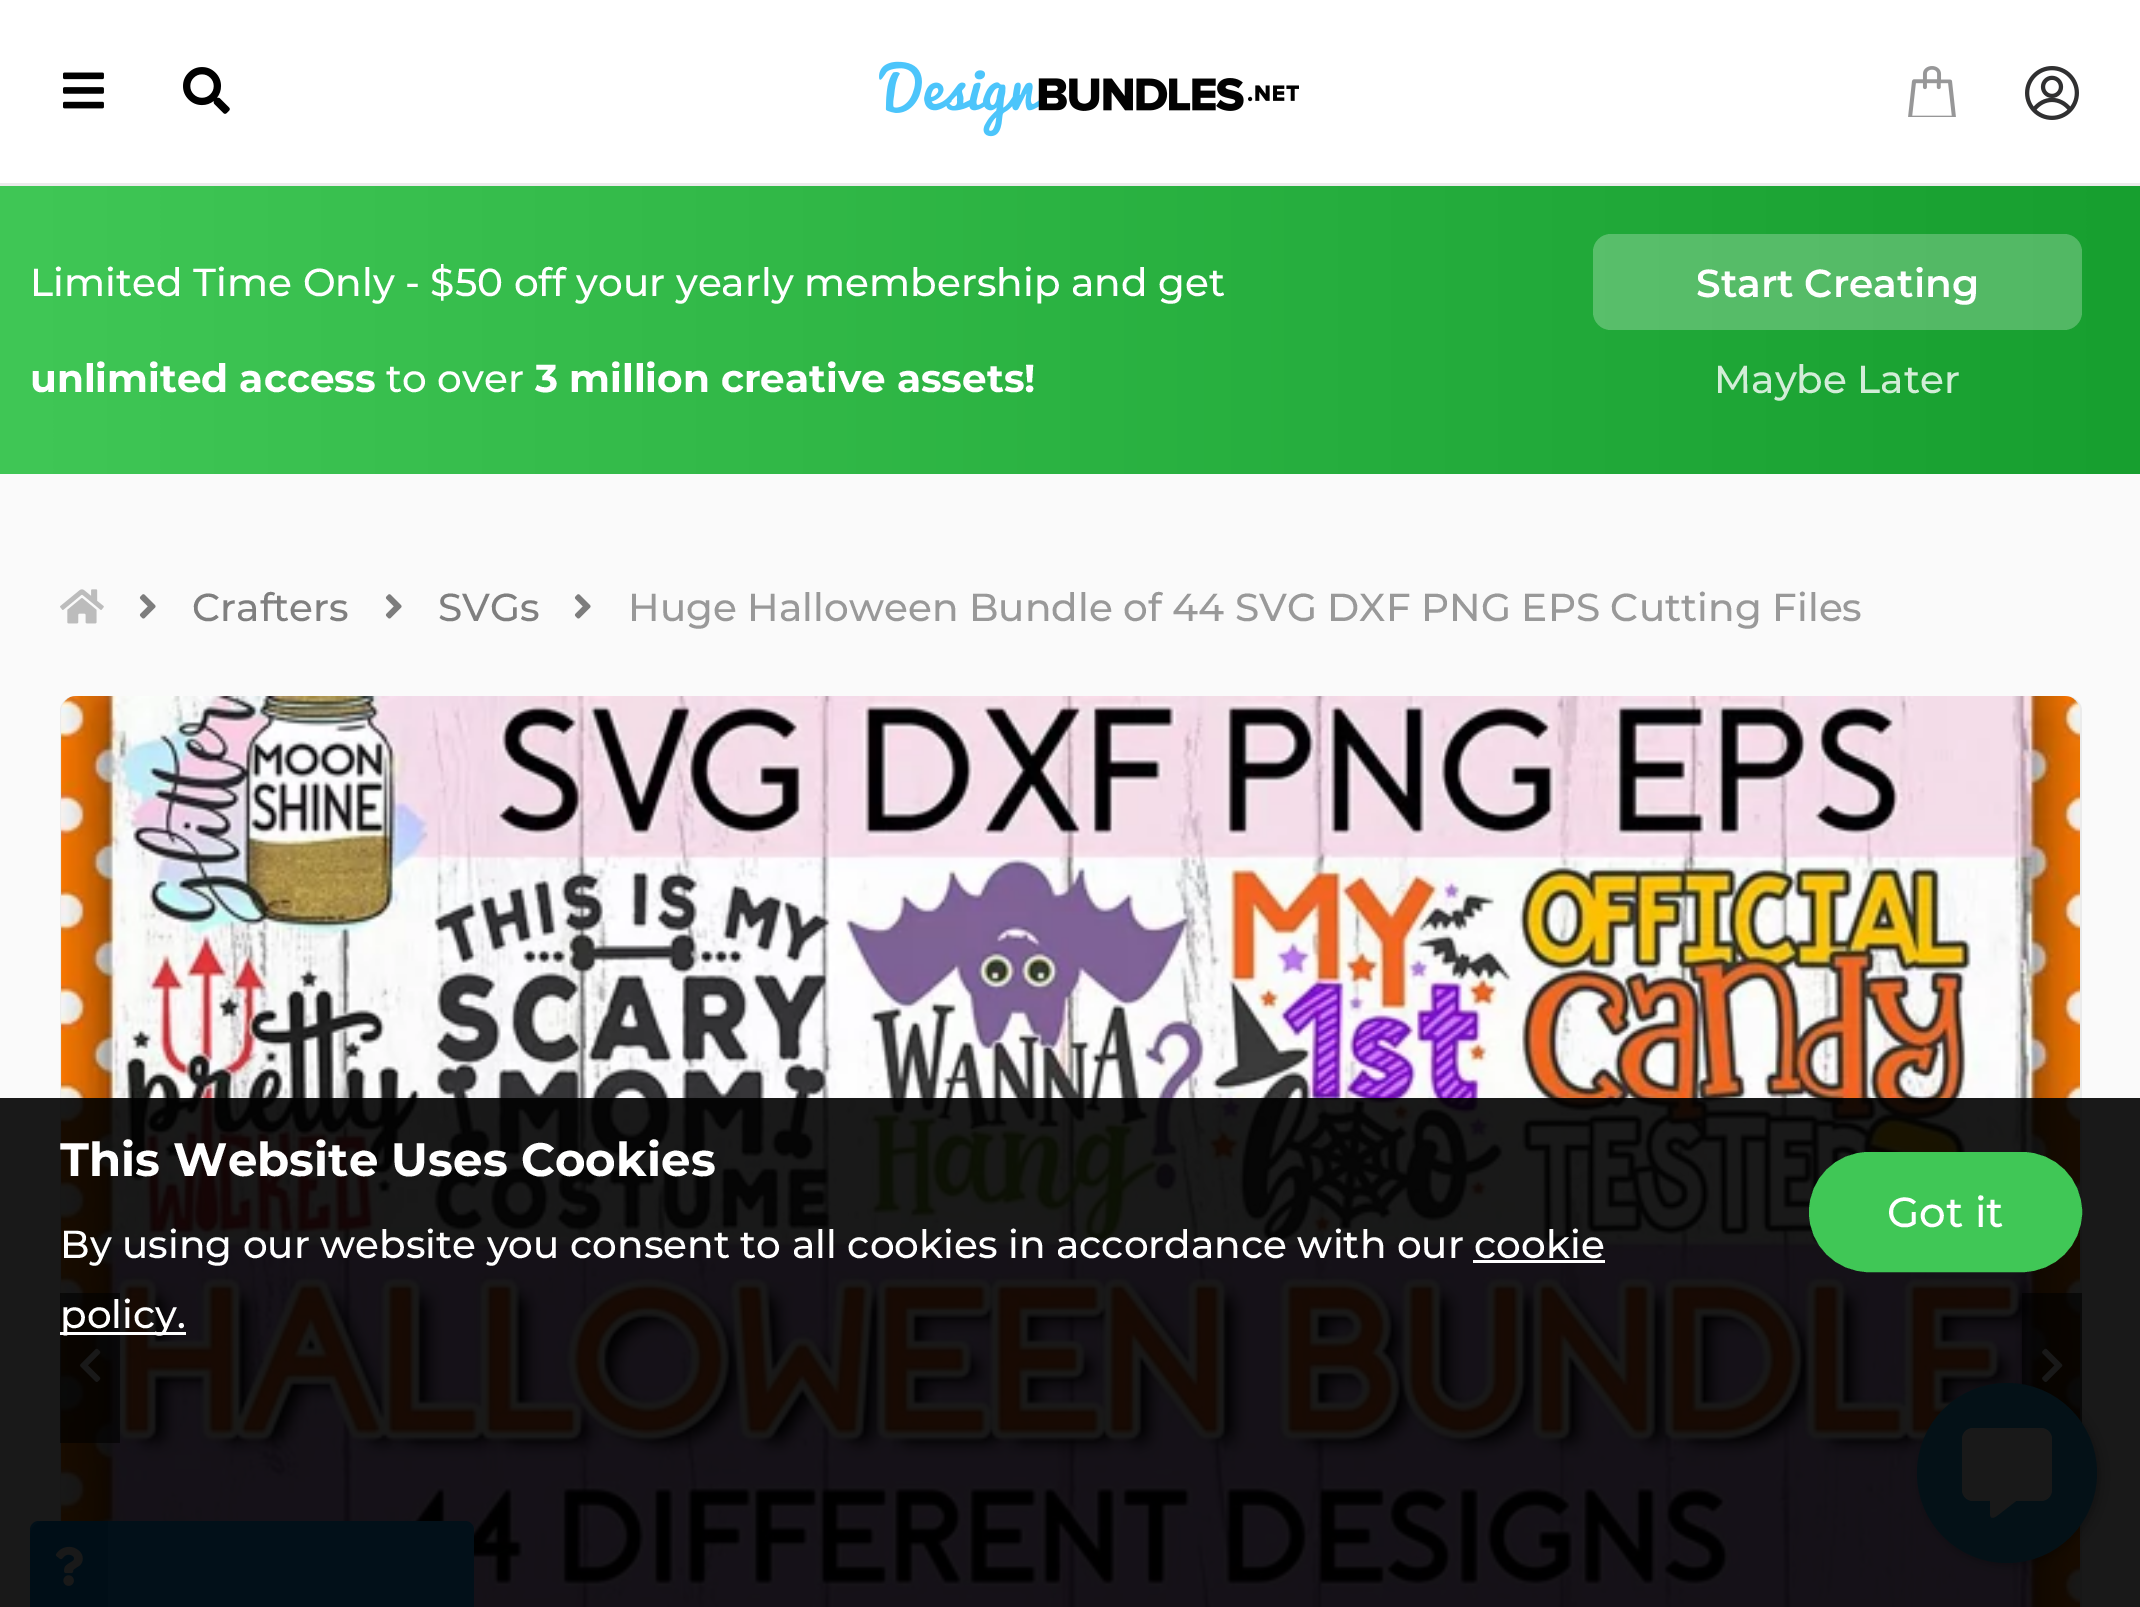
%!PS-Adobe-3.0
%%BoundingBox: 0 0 2140 1607
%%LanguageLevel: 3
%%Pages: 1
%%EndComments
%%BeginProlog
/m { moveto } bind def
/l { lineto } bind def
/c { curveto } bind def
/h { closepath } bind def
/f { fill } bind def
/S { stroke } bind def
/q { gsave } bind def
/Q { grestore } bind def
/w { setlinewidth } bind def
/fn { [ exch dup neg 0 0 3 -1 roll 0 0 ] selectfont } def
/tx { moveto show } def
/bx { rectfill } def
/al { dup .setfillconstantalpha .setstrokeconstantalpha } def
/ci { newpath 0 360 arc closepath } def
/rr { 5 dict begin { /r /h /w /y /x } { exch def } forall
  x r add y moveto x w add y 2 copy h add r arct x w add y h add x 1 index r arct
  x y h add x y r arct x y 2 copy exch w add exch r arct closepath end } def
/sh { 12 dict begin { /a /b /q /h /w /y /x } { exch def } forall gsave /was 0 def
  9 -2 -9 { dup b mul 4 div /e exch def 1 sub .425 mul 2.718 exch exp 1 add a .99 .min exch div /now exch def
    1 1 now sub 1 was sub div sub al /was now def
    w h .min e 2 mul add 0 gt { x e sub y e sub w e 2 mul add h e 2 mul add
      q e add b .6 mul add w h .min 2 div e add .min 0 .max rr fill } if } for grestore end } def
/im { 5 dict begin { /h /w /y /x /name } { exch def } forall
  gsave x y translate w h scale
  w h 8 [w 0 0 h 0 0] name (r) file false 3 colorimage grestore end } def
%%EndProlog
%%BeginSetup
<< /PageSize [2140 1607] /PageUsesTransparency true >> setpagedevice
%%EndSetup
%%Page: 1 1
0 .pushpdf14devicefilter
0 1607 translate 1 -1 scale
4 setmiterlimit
1 setgray
0 0 2140 1607 bx
0.922 setgray
0 183 2140 3 bx
(image0.raw) 63 72 41 37 im
(image1.raw) 183 67 47 47 im
(image2.raw) 879 61 420 76 im
(image3.raw) 1908 66 48 51 im
(image4.raw) 2025 66 54 54 im
q 0 186 m 2140 186 l 2140 474 l 0 474 l h clip newpath
<< /ShadingType 2 /ColorSpace /DeviceRGB /Coords [0 330 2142 330] /Extend [true true] /Function << /FunctionType 2 /Domain [0 1] /C0 [0.251 0.78 0.337] /C1 [0.09 0.624 0.184] /N 1 >> >> shfill Q
/Montserrat-Medium 39 fn
1 setgray
(Limited Time Only - $50 off your yearly membership and get) 30 296 tx
/Montserrat-Bold 39 fn
(unlimited access) 30 392 tx
/Montserrat-Medium 39 fn
(to over) 386 392 tx
/Montserrat-Bold 39 fn
(3 million creative assets!) 535 392 tx
0.25 al
1593 234 489 96 18 rr f
/Montserrat-SemiBold 39 fn
1 al
(Start Creating) 1696 297 tx
/Montserrat-Medium 39 fn
0.824 0.929 0.843 setrgbcolor
(Maybe Later) 1714 393 tx
0.98 setgray
0 474 2140 1133 bx
(image5.raw) 60 589 44 35 im
(image6.raw) 139 594 17 25 im
0.498 setgray
(Crafters) 192 621 tx
(image6.raw) 385 594 17 25 im
(SVGs) 438 621 tx
(image6.raw) 574 594 17 25 im
0.6 setgray
(Huge Halloween Bundle of 44 SVG DXF PNG EPS Cutting Files) 628 621 tx
0.922 setgray
60 696 2022 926 15 rr f
(image7.raw) 61 696 2019 911 im
0.6 al
0 setgray
60 1293 60 150 bx
1 al
(image8.raw) 80 1348 21 34 im
0.6 al
2022 1293 60 131 bx
1 al
(image9.raw) 2042 1348 21 34 im
0.082 0.655 1 setrgbcolor
39 1521 m 465 1521 l 470 1521 474 1525 474 1530 c 474 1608 l 30 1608 l 30 1530 l 30 1525 34 1521 39 1521 c h f
0.008 0.576 0.918 setrgbcolor
45 1521 m 108 1521 l 108 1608 l 30 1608 l 30 1536 l 30 1527.5 36.5 1521 45 1521 c h f
(image10.raw) 55 1546 28 40 im
0 setgray
1920 1386 180 180 90 4.5 0.26 sh
0.153 0.694 0.933 setrgbcolor
2007 1473 90 ci f
1 setgray
1973 1428 m 1967 1428 1962 1433 1962 1439 c 1962 1490 l 1962 1496 1967 1501 1973 1501 c 1990 1501 l 1990 1513 l 1990 1520 1994 1518 1998 1515 c 2016 1501 l 2041 1501 l 2047 1501 2052 1496 2052 1490 c 2052 1439 l 2052 1433 2047 1428 2041 1428 c h f
0.9 al
0 setgray
0 1098 2140 509 bx
/Montserrat-Bold 46.75 fn
1 al
1 setgray
(This Website Uses Cookies) 60 1176 tx
/Montserrat-Medium 39 fn
(By using our website you consent to all cookies in accordance with our cookie) 60 1258 tx
60 1332 126 3 bx
(policy.) 60 1328 tx
1473 1260 132 3 bx
0.251 0.78 0.337 setrgbcolor
1810.5 1153.5 270 117 58.5 rr q f Q
3 w
S
/Montserrat-Medium 42 fn
1 setgray
(Got it) 1887 1227 tx
.poppdf14devicefilter showpage
%%EOF
